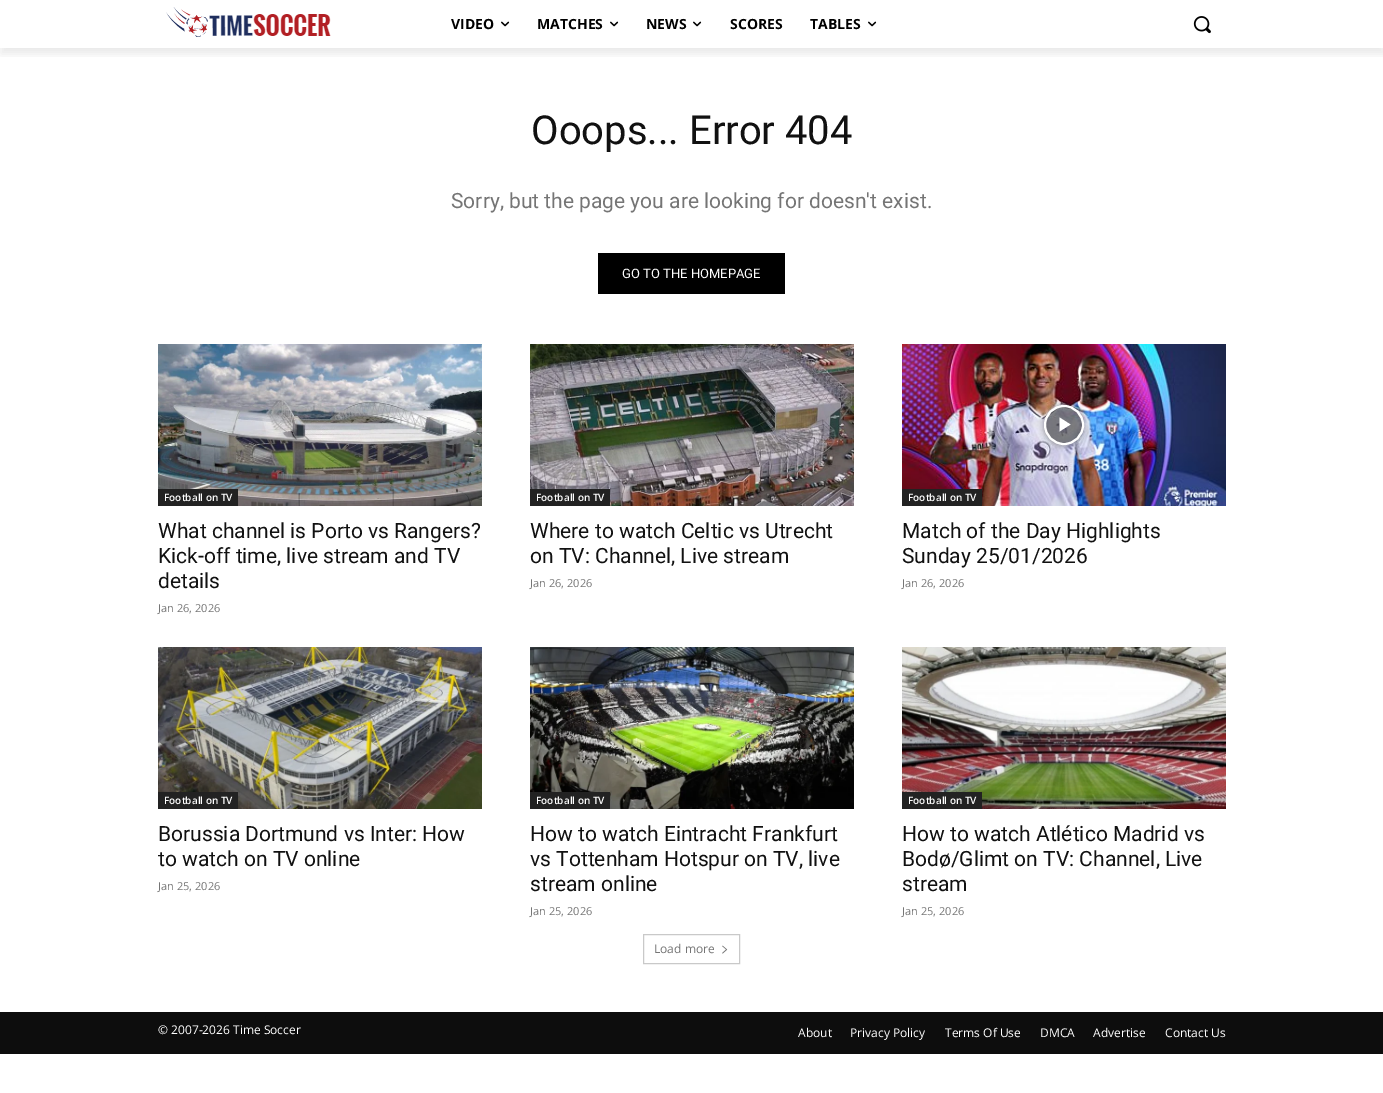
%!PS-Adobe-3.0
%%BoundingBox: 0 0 1383 1093
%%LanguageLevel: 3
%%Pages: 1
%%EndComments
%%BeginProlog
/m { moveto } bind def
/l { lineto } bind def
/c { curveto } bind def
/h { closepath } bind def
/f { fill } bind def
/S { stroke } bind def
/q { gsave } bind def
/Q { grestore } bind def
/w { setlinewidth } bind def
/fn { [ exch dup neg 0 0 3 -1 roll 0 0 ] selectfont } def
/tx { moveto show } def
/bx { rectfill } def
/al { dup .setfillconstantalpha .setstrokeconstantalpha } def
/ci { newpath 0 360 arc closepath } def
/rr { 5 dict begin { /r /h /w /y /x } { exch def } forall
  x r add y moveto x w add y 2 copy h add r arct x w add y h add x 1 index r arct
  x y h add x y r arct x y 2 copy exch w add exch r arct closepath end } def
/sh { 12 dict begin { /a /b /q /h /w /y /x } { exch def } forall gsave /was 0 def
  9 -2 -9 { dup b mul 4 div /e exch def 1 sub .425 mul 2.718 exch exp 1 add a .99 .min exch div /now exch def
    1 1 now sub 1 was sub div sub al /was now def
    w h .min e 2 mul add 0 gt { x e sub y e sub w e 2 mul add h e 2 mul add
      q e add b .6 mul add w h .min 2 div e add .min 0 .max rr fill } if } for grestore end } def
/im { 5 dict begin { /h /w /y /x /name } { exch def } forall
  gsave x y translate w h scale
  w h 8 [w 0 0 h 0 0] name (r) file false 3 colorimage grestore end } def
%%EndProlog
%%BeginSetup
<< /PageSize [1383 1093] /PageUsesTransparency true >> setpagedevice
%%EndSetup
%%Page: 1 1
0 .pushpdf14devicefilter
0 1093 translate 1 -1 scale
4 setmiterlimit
1 setgray
0 0 1383 1093 bx
(image0.raw) 166 7 165 30 im
q
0 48 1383 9 rectclip
0 setgray
1 6 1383 48 0 4 0.08 sh
Q
/OpenSans-Bold 14 fn
0 setgray
(VIDEO) 451 29 tx
(image1.raw) 501 21 9 6 im
(MATCHES) 537 29 tx
(image1.raw) 610 21 9 6 im
(NEWS) 646 29 tx
(image1.raw) 693 21 9 6 im
(SCORES) 730 29 tx
(TABLES) 810 29 tx
(image1.raw) 868 21 9 6 im
(image2.raw) 1193 16 18 18 im
/Roboto-Regular 40 fn
0.067 setgray
(Ooops... Error 404) 531 144 tx
/Roboto-Regular 21 fn
0.459 setgray
(Sorry, but the page you are looking for doesn't exist.) 451 208 tx
0 setgray
598 253 187 41 bx
/Roboto-Regular 13 fn
1 setgray
(GO TO THE HOMEPAGE) 622 278 tx
(image3.raw) 158 344 324 162 im
0.133 setgray
158 489 80 17 bx
/OpenSans-SemiBold 10 fn
1 setgray
(Football on TV) 164 501 tx
/Roboto-Regular 21 fn
0.067 setgray
(What channel is Porto vs Rangers?) 158 538 tx
(Kick-off time, live stream and TV) 158 563 tx
(details) 158 588 tx
/OpenSans-Regular 11 fn
0.459 setgray
(Jan 26, 2026) 158 612 tx
(image4.raw) 530 344 324 162 im
0.133 setgray
530 489 80 17 bx
/OpenSans-SemiBold 10 fn
1 setgray
(Football on TV) 536 501 tx
/Roboto-Regular 21 fn
0.067 setgray
(Where to watch Celtic vs Utrecht) 530 538 tx
(on TV: Channel, Live stream) 530 563 tx
/OpenSans-Regular 11 fn
0.459 setgray
(Jan 26, 2026) 530 587 tx
(image5.raw) 902 344 324 162 im
q
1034 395 m 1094 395 l 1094 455 l 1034 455 l h 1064 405 m 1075 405 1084 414 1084 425 c 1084 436 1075 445 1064 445 c 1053 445 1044 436 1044 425 c 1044 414 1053 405 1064 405 c h eoclip newpath
0 setgray
1044 405 40 40 20 3 0.4 sh
Q
0.48 al
0 setgray
1064 425 19 ci f
1 al
1 setgray
2 w
1064 425 19 ci S
1059.5 417.5 m 1059.5 431.5 l 1070.5 424.5 l h f
0.133 setgray
902 489 80 17 bx
/OpenSans-SemiBold 10 fn
1 setgray
(Football on TV) 908 501 tx
/Roboto-Regular 21 fn
0.067 setgray
(Match of the Day Highlights) 902 538 tx
(Sunday 25/01/2026) 902 563 tx
/OpenSans-Regular 11 fn
0.459 setgray
(Jan 26, 2026) 902 587 tx
(image6.raw) 158 647 324 162 im
0.133 setgray
158 792 80 17 bx
/OpenSans-SemiBold 10 fn
1 setgray
(Football on TV) 164 804 tx
/Roboto-Regular 21 fn
0.067 setgray
(Borussia Dortmund vs Inter: How) 158 841 tx
(to watch on TV online) 158 866 tx
/OpenSans-Regular 11 fn
0.459 setgray
(Jan 25, 2026) 158 890 tx
(image7.raw) 530 647 324 162 im
0.133 setgray
530 792 80 17 bx
/OpenSans-SemiBold 10 fn
1 setgray
(Football on TV) 536 804 tx
/Roboto-Regular 21 fn
0.067 setgray
(How to watch Eintracht Frankfurt) 530 841 tx
(vs Tottenham Hotspur on TV, live) 530 866 tx
(stream online) 530 891 tx
/OpenSans-Regular 11 fn
0.459 setgray
(Jan 25, 2026) 530 915 tx
(image8.raw) 902 647 324 162 im
0.133 setgray
902 792 80 17 bx
/OpenSans-SemiBold 10 fn
1 setgray
(Football on TV) 908 804 tx
/Roboto-Regular 21 fn
0.067 setgray
(How to watch Atlético Madrid vs) 902 841 tx
(Bodø/Glimt on TV: Channel, Live) 902 866 tx
(stream) 902 891 tx
/OpenSans-Regular 11 fn
0.459 setgray
(Jan 25, 2026) 902 915 tx
0.788 setgray
1 w
643.5 934.5 96 29 rectstroke
/OpenSans-Regular 12 fn
0.459 setgray
(Load more) 654 953 tx
(image9.raw) 722 945 6 9 im
0.051 setgray
0 1012 1383 42 bx
1 setgray
(© 2007-2026 Time Soccer) 158 1034 tx
(About) 798 1037 tx
(Privacy Policy) 850 1037 tx
(Terms Of Use) 945 1037 tx
(DMCA) 1040 1037 tx
(Advertise) 1093 1037 tx
(Contact Us) 1165 1037 tx
.poppdf14devicefilter showpage
%%EOF
